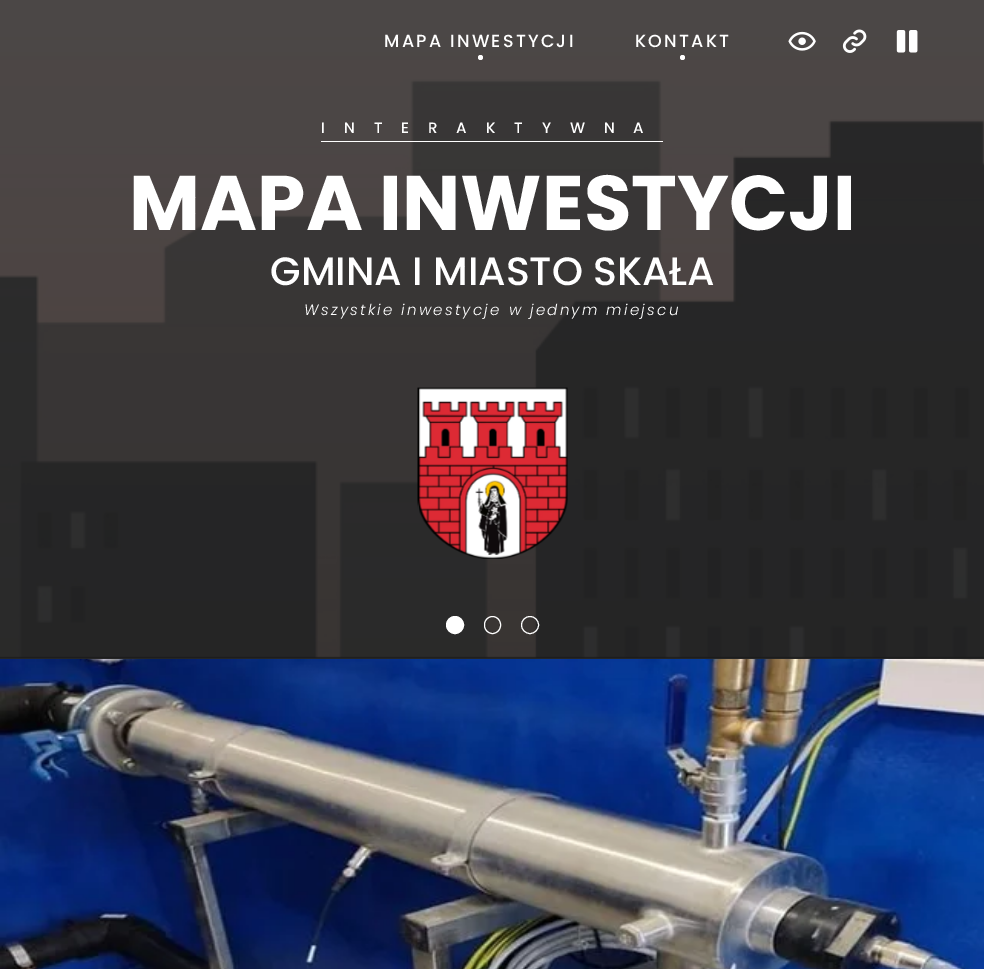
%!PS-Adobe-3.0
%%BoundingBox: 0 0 984 969
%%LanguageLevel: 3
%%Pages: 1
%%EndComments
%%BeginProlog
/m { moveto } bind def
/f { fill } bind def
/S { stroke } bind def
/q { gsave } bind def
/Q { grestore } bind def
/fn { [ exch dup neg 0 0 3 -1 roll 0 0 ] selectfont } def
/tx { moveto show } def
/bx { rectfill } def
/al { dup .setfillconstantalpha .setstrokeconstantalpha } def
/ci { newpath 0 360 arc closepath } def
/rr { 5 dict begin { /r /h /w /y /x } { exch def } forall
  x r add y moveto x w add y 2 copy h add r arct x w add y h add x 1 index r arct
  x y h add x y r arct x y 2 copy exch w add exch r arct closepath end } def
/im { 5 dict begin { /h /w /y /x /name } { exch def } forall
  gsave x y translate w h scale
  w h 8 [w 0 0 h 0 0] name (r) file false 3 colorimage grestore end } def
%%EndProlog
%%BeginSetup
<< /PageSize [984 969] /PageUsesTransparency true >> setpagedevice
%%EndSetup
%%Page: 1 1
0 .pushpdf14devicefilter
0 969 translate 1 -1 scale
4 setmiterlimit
1 setgray
0 0 984 969 bx
(image5.raw) 0 658 984 311 im
(image0.raw) 0 0 984 659 im
0.78 al
0.129 setgray
0 0 984 659 bx
/Poppins-Medium 17.5 fn
1 al
1 setgray
384 47 m 2.25 0 (MAPA INWESTYCJI) ashow
480.5 57.5 2.5 ci f
635 47 m 2.25 0 (KONTAKT) ashow
682.5 57.5 2.5 ci f
(image1.raw) 788 31 28 20 im
(image2.raw) 842 29 25 24 im
(image3.raw) 896 30 22 23 im
/Poppins-Medium 15.1 fn
321 133 m 18.9 0 (INTERAKTYWNA) ashow
321 141 342 1 bx
/Poppins-Bold 77.5 fn
(MAPA INWESTYCJI) 129 230 tx
/Poppins-Medium 39.5 fn
(GMINA I MIASTO SKAŁA) 270 285 tx
/Poppins-LightItalic 15.1 fn
304 315 m 2.25 0 (Wszystkie inwestycje w jednym miejscu) ashow
(image4.raw) 417 387 151 172 im
455 625 8.5 ci q f Q
S
484.5 616.5 16 17 8 rr S
530 625 8.5 ci S
.poppdf14devicefilter showpage
%%EOF
